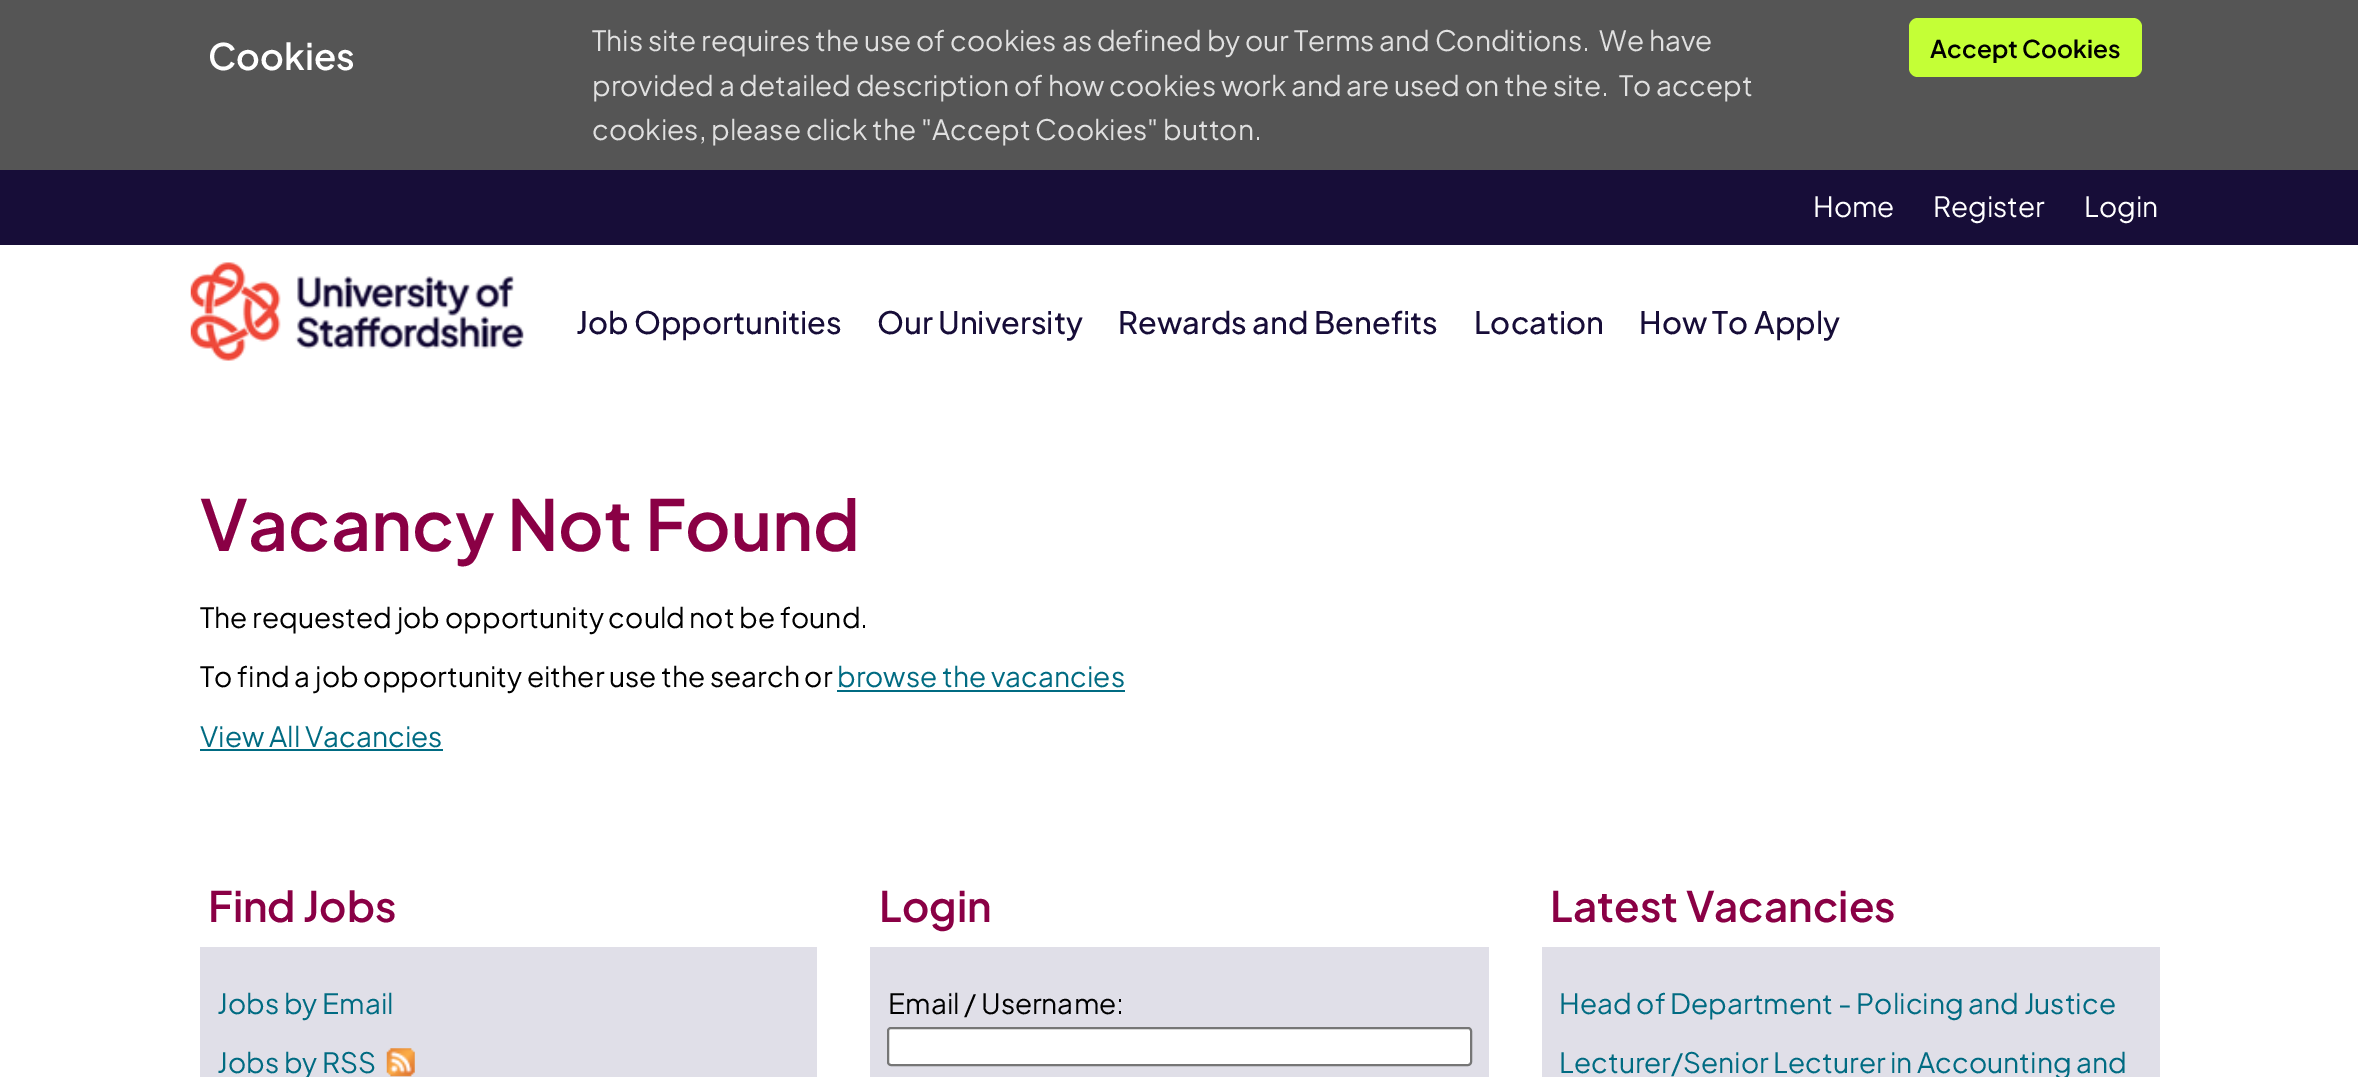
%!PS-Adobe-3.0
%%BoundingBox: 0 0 2358 1077
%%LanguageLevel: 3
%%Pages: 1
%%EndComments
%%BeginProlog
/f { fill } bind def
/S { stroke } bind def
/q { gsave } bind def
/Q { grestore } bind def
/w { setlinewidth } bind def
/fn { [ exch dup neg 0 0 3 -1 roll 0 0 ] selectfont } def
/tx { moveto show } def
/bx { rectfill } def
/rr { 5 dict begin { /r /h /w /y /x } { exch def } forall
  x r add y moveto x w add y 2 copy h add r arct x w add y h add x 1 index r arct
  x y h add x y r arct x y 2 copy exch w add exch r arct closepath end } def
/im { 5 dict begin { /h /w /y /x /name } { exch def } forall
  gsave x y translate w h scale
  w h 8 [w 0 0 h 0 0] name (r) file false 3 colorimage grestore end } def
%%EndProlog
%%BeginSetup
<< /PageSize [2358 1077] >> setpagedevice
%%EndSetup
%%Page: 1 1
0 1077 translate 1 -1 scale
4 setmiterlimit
1 setgray
0 0 2358 1077 bx
0.333 setgray
0 0 2358 170 bx
/PlusJakartaSans-SemiBold 36.5 fn
1 setgray
(Cookies) 208 70 tx
/PlusJakartaSans-Regular 28 fn
0.878 setgray
(This site requires the use of cookies as defined by our Terms and Conditions.) 592 51 tx
(We have) 1599 51 tx
(provided a detailed description of how cookies work and are used on the site.) 592 96 tx
(To accept) 1619 96 tx
(cookies, please click the "Accept Cookies" button.) 592 140 tx
0.769 1 0.212 setrgbcolor
1909 18 233 59 9 rr f
/PlusJakartaSans-SemiBold 24.5 fn
0 setgray
(Accept Cookies) 1930 58 tx
0.09 0.051 0.22 setrgbcolor
0 170 2358 75 bx
/PlusJakartaSans-Regular 28 fn
1 setgray
(Home) 1813 217 tx
(Register) 1933 217 tx
(Login) 2084 217 tx
(image0.raw) 190 262 334 99 im
/PlusJakartaSans-Medium 30.75 fn
0.09 0.051 0.22 setrgbcolor
(Job Opportunities) 576 334 tx
(Our University) 877 334 tx
(Rewards and Benefits) 1118 334 tx
(Location) 1474 334 tx
(How To Apply) 1639 334 tx
/PlusJakartaSans-SemiBold 70 fn
0.541 0 0.271 setrgbcolor
(Vacancy Not Found) 200 551 tx
/PlusJakartaSans-Regular 28 fn
0 setgray
(The requested job opportunity could not be found.) 200 628 tx
(To find a job opportunity either use the search or) 200 687 tx
0 0.42 0.51 setrgbcolor
(browse the vacancies) 837 687 tx
837 690 288 2 bx
(View All Vacancies) 200 747 tx
200 749 243 2 bx
0.878 0.875 0.91 setrgbcolor
200 947 617 130 bx
/PlusJakartaSans-SemiBold 42 fn
0.541 0 0.271 setrgbcolor
(Find Jobs) 208 922 tx
/PlusJakartaSans-Regular 28 fn
0 0.42 0.51 setrgbcolor
(Jobs by Email) 217 1014 tx
(Jobs by RSS) 217 1073 tx
(image1.raw) 386 1048 29 29 im
0.878 0.875 0.91 setrgbcolor
870 947 619 130 bx
/PlusJakartaSans-SemiBold 42 fn
0.541 0 0.271 setrgbcolor
(Login) 879 922 tx
/PlusJakartaSans-Regular 28 fn
0 setgray
(Email / Username:) 888 1014 tx
1 setgray
888 1028 583 37 3 rr q f Q
0.463 setgray
2 w
S
0.878 0.875 0.91 setrgbcolor
1542 947 618 130 bx
/PlusJakartaSans-SemiBold 42 fn
0.541 0 0.271 setrgbcolor
(Latest Vacancies) 1550 922 tx
/PlusJakartaSans-Regular 28 fn
0 0.42 0.51 setrgbcolor
(Head of Department - Policing and Justice) 1559 1014 tx
(Lecturer/Senior Lecturer in Accounting and) 1559 1073 tx
showpage
%%EOF
